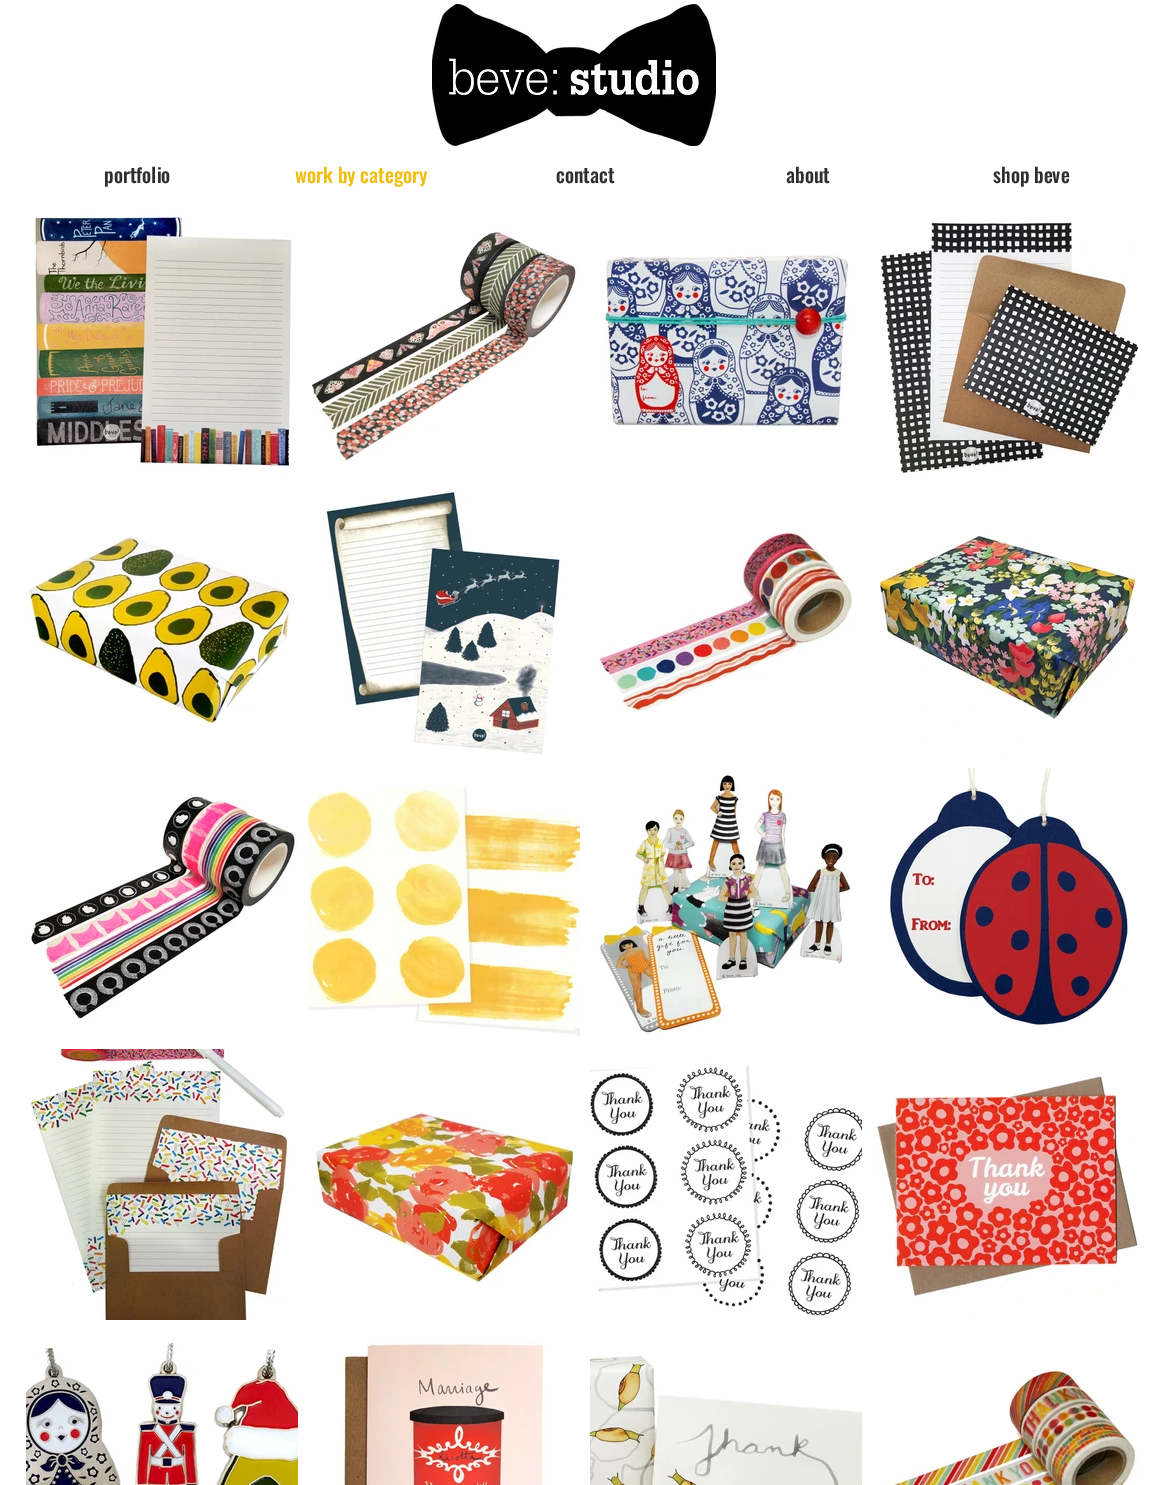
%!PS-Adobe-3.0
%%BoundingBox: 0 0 1171 1485
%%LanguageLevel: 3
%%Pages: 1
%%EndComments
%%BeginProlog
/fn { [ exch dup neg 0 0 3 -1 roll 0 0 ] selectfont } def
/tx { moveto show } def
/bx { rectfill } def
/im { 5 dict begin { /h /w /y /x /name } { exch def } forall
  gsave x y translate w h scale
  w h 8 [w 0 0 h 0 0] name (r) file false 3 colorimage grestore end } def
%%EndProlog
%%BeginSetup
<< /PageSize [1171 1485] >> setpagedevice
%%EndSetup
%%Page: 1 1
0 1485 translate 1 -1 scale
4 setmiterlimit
1 setgray
0 0 1171 1485 bx
(image0.raw) 432 4 284 142 im
/Oswald-Medium 20 fn
0.184 0.18 0.18 setrgbcolor
(portfolio) 104 183 tx
0.949 0.741 0.047 setrgbcolor
(work by category) 295 183 tx
0.184 0.18 0.18 setrgbcolor
(contact) 556 183 tx
(about) 786 183 tx
(shop beve) 993 183 tx
(image1.raw) 26 206 272 271 im
(image2.raw) 308 206 272 271 im
(image3.raw) 590 206 272 271 im
(image4.raw) 872 206 271 271 im
(image5.raw) 26 487 272 271 im
(image6.raw) 308 487 272 271 im
(image7.raw) 590 487 272 271 im
(image8.raw) 872 487 271 271 im
(image9.raw) 26 768 272 271 im
(image10.raw) 308 768 272 271 im
(image11.raw) 590 768 272 271 im
(image12.raw) 872 768 271 271 im
(image13.raw) 26 1049 272 271 im
(image14.raw) 308 1049 272 271 im
(image15.raw) 590 1049 272 271 im
(image16.raw) 872 1049 271 271 im
(image17.raw) 26 1330 272 155 im
(image18.raw) 308 1330 272 155 im
(image19.raw) 590 1330 272 155 im
(image20.raw) 872 1330 271 155 im
showpage
%%EOF
